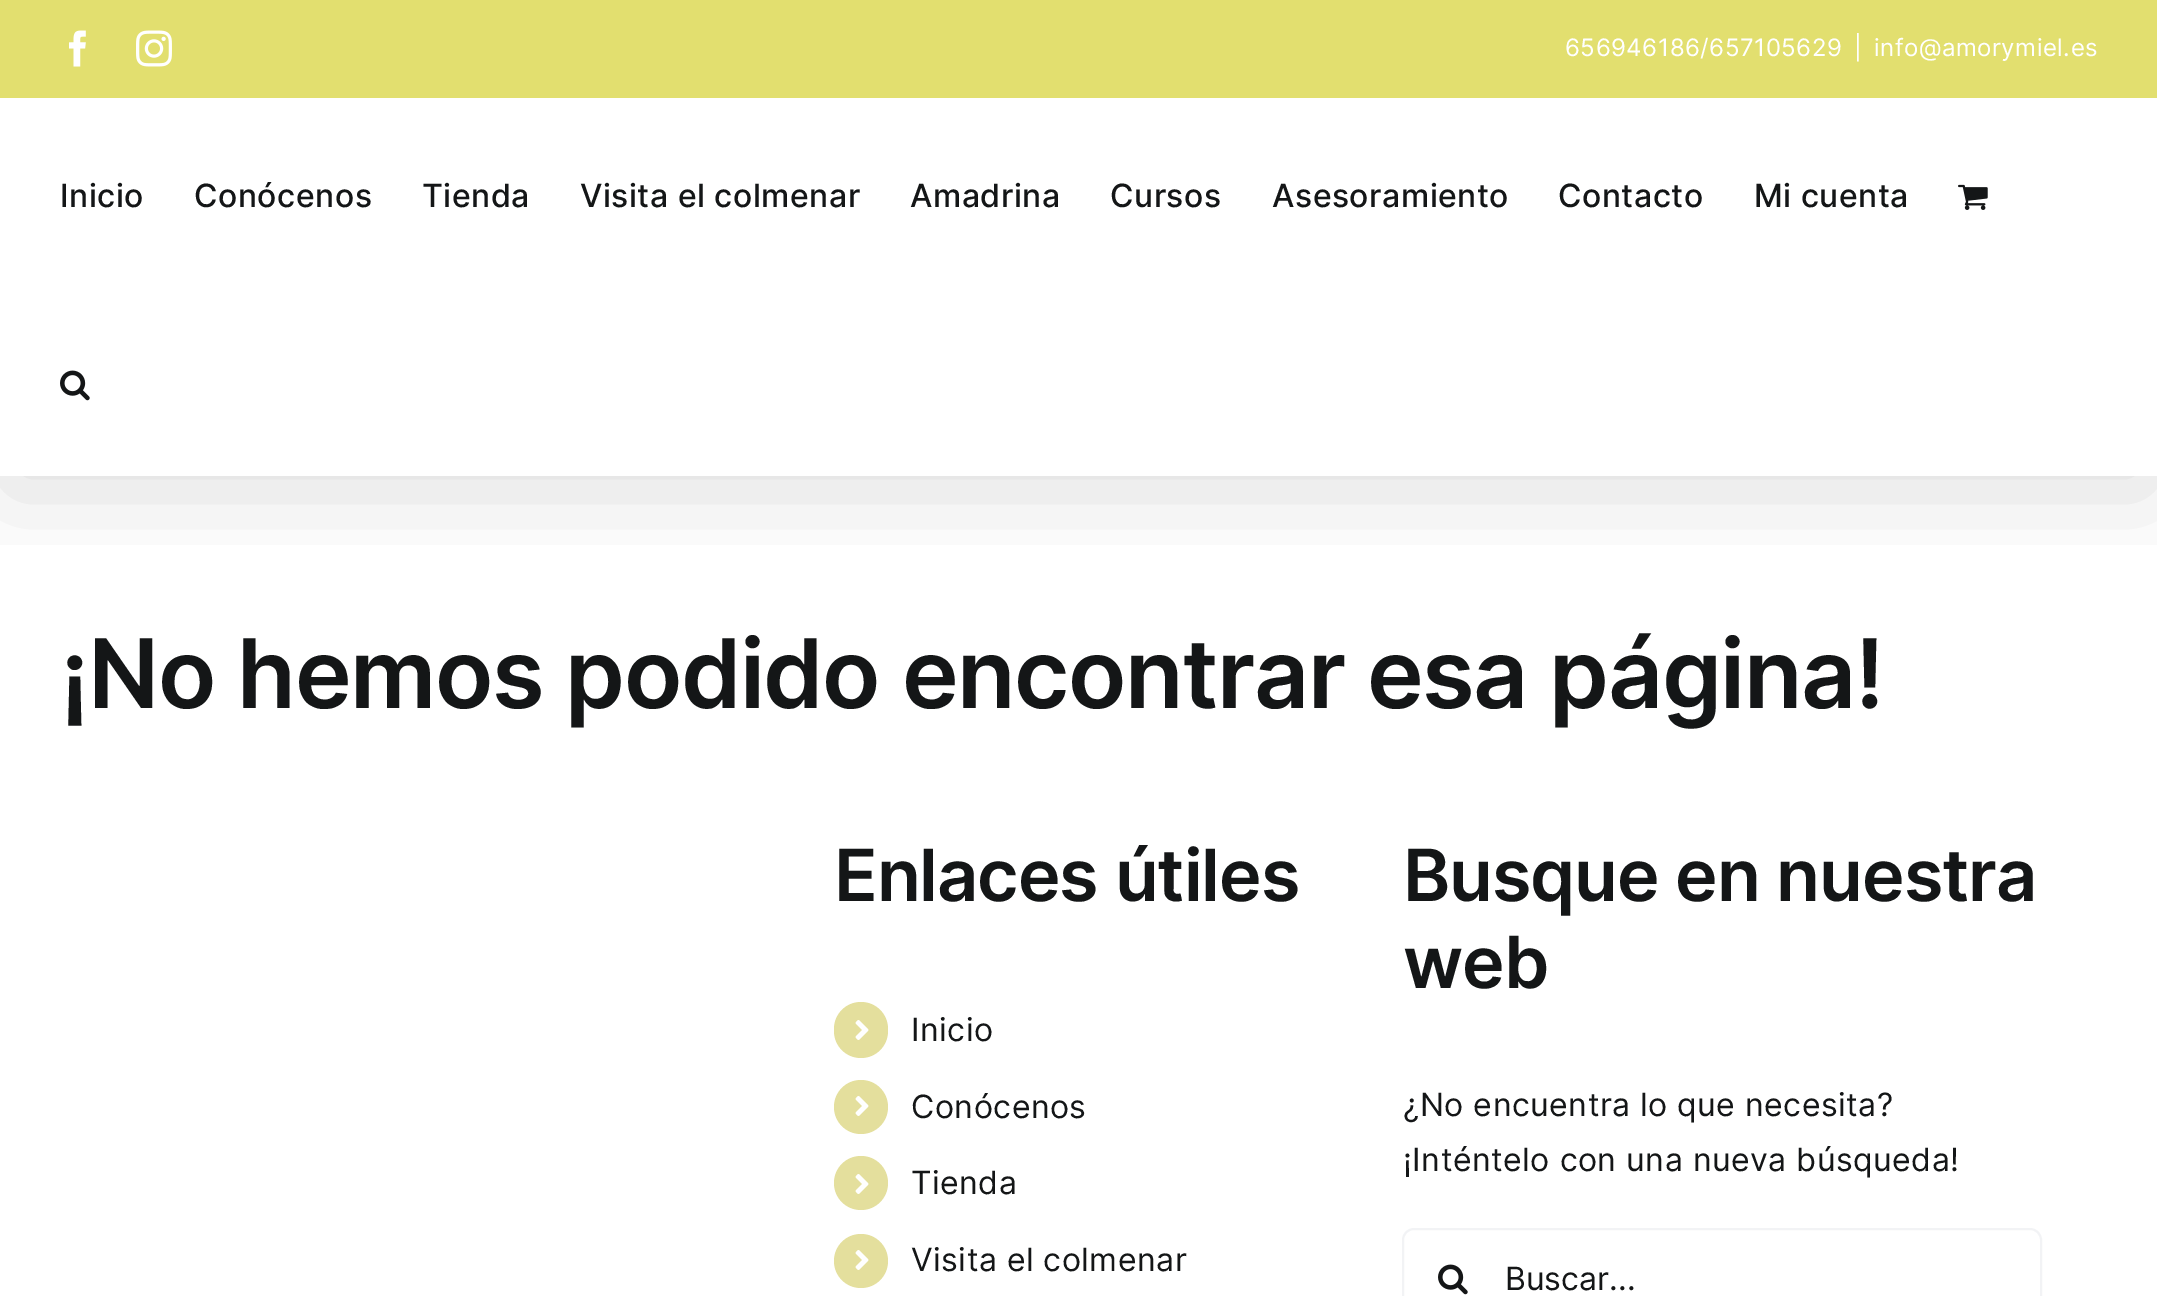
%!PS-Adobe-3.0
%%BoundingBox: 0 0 2157 1296
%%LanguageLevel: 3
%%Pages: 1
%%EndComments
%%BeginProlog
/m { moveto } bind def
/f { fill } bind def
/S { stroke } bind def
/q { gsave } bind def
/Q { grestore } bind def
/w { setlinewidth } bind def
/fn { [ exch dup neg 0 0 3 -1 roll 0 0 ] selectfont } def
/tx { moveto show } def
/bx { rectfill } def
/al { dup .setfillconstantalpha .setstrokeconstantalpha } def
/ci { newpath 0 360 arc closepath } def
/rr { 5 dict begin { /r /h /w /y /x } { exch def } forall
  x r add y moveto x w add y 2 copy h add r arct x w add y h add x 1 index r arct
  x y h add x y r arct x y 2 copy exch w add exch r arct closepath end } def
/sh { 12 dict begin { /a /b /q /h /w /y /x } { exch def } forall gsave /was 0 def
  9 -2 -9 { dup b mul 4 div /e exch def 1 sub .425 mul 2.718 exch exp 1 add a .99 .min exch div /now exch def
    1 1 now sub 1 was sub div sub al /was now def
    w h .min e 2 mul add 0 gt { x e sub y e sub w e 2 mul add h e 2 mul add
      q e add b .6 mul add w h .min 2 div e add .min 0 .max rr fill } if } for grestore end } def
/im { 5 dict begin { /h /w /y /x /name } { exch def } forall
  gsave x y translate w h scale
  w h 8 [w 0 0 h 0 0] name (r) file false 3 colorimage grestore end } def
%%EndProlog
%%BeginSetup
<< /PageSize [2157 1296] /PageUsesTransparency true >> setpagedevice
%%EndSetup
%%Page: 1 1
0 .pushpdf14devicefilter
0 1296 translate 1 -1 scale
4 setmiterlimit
1 setgray
0 0 2157 1296 bx
q
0 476 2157 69 rectclip
0 setgray
4 24 2150 468 0 50 0.14 sh
Q
0.886 0.875 0.435 setrgbcolor
0 0 2157 98 bx
(image0.raw) 69 30 17 37 im
(image1.raw) 136 30 36 37 im
/Inter-Regular 24 fn
1 setgray
1565 56 m 0.5 0 (656946186/657105629) ashow
1854 56 m 0.5 0 (|) ashow
1874 56 m 0.5 0 (info@amorymiel.es) ashow
/Inter-Medium 32 fn
0.078 0.086 0.09 setrgbcolor
60 207 m 0.5 0 (Inicio) ashow
194 207 m 0.5 0 (Conócenos) ashow
422 207 m 0.5 0 (Tienda) ashow
580 207 m 0.5 0 (Visita el colmenar) ashow
910 207 m 0.5 0 (Amadrina) ashow
1110 207 m 0.5 0 (Cursos) ashow
1272 207 m 0.5 0 (Asesoramiento) ashow
1558 207 m 0.5 0 (Contacto) ashow
1754 207 m 0.5 0 (Mi cuenta) ashow
(image2.raw) 1958 184 30 26 im
(image3.raw) 60 370 30 31 im
/Inter-SemiBold 96 fn
60 708 m -1.45 0 (¡No hemos podido encontrar esa página!) ashow
/Inter-SemiBold 72 fn
834 901 m -1.1 0 (Enlaces útiles) ashow
0.894 0.875 0.616 setrgbcolor
834 1002 54 56 27 rr f
(image4.raw) 855 1020 14 20 im
/Inter-Regular 32 fn
0.078 0.086 0.09 setrgbcolor
911 1041 m 0.5 0 (Inicio) ashow
0.894 0.875 0.616 setrgbcolor
861 1107 27 ci f
(image4.raw) 855 1096 14 20 im
0.078 0.086 0.09 setrgbcolor
911 1118 m 0.5 0 (Conócenos) ashow
0.894 0.875 0.616 setrgbcolor
861 1183 27 ci f
(image4.raw) 855 1174 14 20 im
0.078 0.086 0.09 setrgbcolor
911 1194 m 0.5 0 (Tienda) ashow
0.894 0.875 0.616 setrgbcolor
861 1261 27 ci f
(image4.raw) 855 1250 14 20 im
0.078 0.086 0.09 setrgbcolor
911 1271 m 0.5 0 (Visita el colmenar) ashow
/Inter-SemiBold 72 fn
1403 901 m -1.1 0 (Busque en nuestra) ashow
1403 988 m -1.1 0 (web) ashow
/Inter-Regular 32 fn
1403 1116 m 0.5 0 (¿No encuentra lo que necesita?) ashow
1403 1171 m 0.5 0 (¡Inténtelo con una nueva búsqueda!) ashow
0.949 0.953 0.961 setrgbcolor
2 w
1403 1229 638 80 11 rr S
(image3.raw) 1438 1264 30 31 im
0.078 0.086 0.09 setrgbcolor
(Buscar...) 1505 1290 tx
.poppdf14devicefilter showpage
%%EOF
